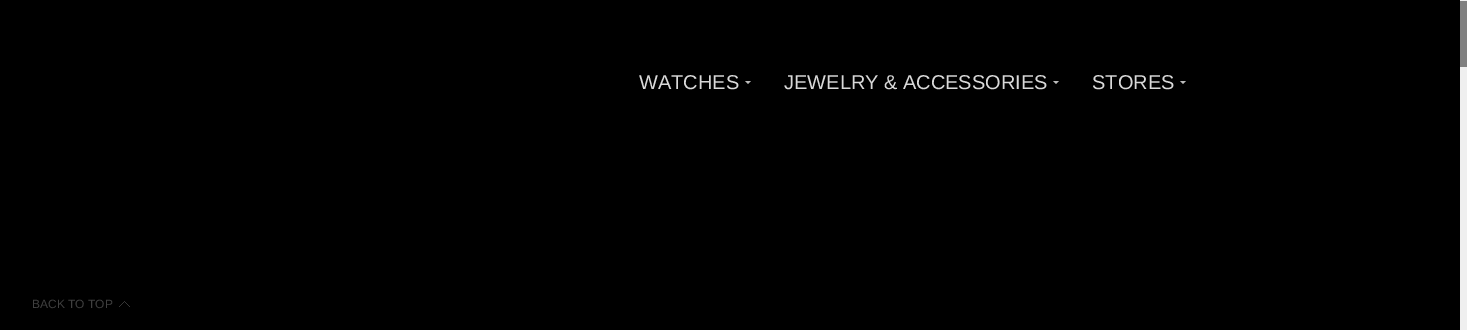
%!PS-Adobe-3.0
%%BoundingBox: 0 0 1467 330
%%LanguageLevel: 3
%%Pages: 1
%%EndComments
%%BeginProlog
/m { moveto } bind def
/l { lineto } bind def
/h { closepath } bind def
/f { fill } bind def
/fn { [ exch dup neg 0 0 3 -1 roll 0 0 ] selectfont } def
/tx { moveto show } def
/bx { rectfill } def
/im { 5 dict begin { /h /w /y /x /name } { exch def } forall
  gsave x y translate w h scale
  w h 8 [w 0 0 h 0 0] name (r) file false 3 colorimage grestore end } def
%%EndProlog
%%BeginSetup
<< /PageSize [1467 330] >> setpagedevice
%%EndSetup
%%Page: 1 1
0 330 translate 1 -1 scale
4 setmiterlimit
0 setgray
0 0 1467 330 bx
/LiberationSans-Regular 20 fn
0.851 setgray
(WATCHES) 639 89 tx
0.733 setgray
745 81 m 751 81 l 748 84 l h f
0.851 setgray
(JEWELRY & ACCESSORIES) 784 89 tx
0.733 setgray
1053 81 m 1059 81 l 1056 84 l h f
0.851 setgray
(STORES) 1092 89 tx
0.733 setgray
1180 81 m 1186 81 l 1183 84 l h f
(image0.raw) 119 301 11 6 im
/LiberationSans-Regular 12 fn
0.251 setgray
(BACK TO TOP) 32 308 tx
0.937 setgray
1460 0 7 330 bx
0.502 setgray
1460 1 7 66 bx
showpage
%%EOF
